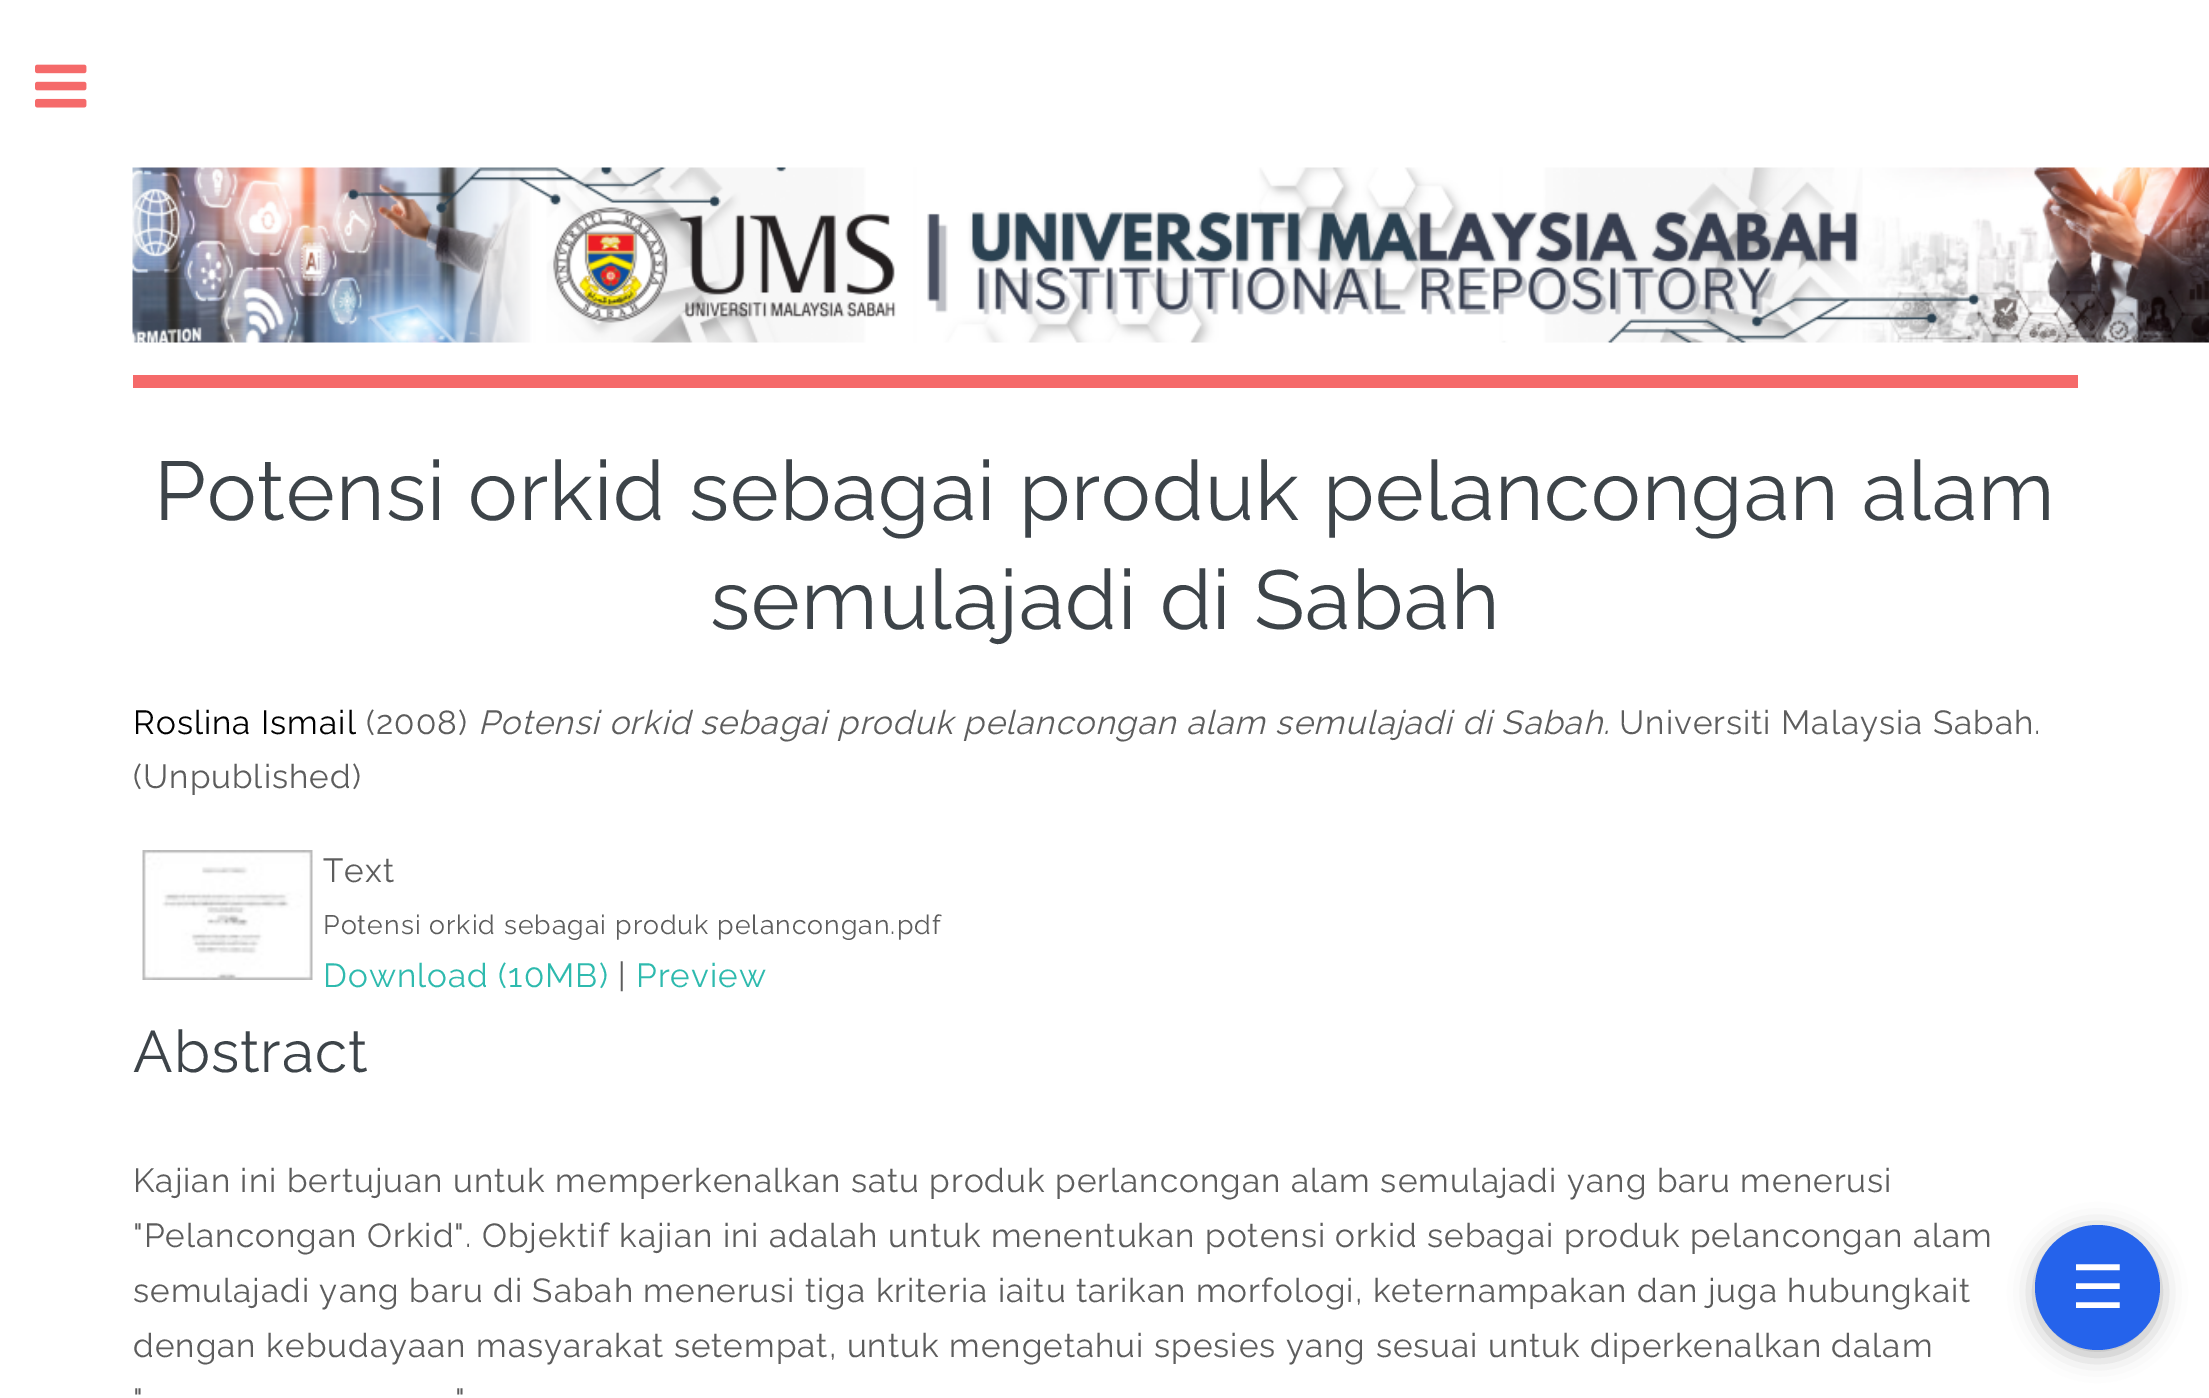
%!PS-Adobe-3.0
%%BoundingBox: 0 0 2209 1398
%%LanguageLevel: 3
%%Pages: 1
%%EndComments
%%BeginProlog
/m { moveto } bind def
/f { fill } bind def
/fn { [ exch dup neg 0 0 3 -1 roll 0 0 ] selectfont } def
/tx { moveto show } def
/bx { rectfill } def
/al { dup .setfillconstantalpha .setstrokeconstantalpha } def
/ci { newpath 0 360 arc closepath } def
/rr { 5 dict begin { /r /h /w /y /x } { exch def } forall
  x r add y moveto x w add y 2 copy h add r arct x w add y h add x 1 index r arct
  x y h add x y r arct x y 2 copy exch w add exch r arct closepath end } def
/sh { 12 dict begin { /a /b /q /h /w /y /x } { exch def } forall gsave /was 0 def
  9 -2 -9 { dup b mul 4 div /e exch def 1 sub .425 mul 2.718 exch exp 1 add a .99 .min exch div /now exch def
    1 1 now sub 1 was sub div sub al /was now def
    w h .min e 2 mul add 0 gt { x e sub y e sub w e 2 mul add h e 2 mul add
      q e add b .6 mul add w h .min 2 div e add .min 0 .max rr fill } if } for grestore end } def
/im { 5 dict begin { /h /w /y /x /name } { exch def } forall
  gsave x y translate w h scale
  w h 8 [w 0 0 h 0 0] name (r) file false 3 colorimage grestore end } def
%%EndProlog
%%BeginSetup
<< /PageSize [2209 1398] /PageUsesTransparency true >> setpagedevice
%%EndSetup
%%Page: 1 1
0 .pushpdf14devicefilter
0 1398 translate 1 -1 scale
4 setmiterlimit
1 setgray
0 0 2209 1398 bx
(image0.raw) 35 64 52 44 im
0.961 0.416 0.416 setrgbcolor
133 375 1945 13 bx
(image1.raw) 132 167 2077 176 im
/Raleway-Regular 83.3 fn
0.239 0.267 0.286 setrgbcolor
154 520 m 1 0 (Potensi orkid sebagai produk pelancongan alam) ashow
710 629 m 1 0 (semulajadi di Sabah) ashow
/Raleway-Regular 33.33 fn
0 setgray
133 734 m 1 0 (Roslina Ismail) ashow
0.365 setgray
366 734 m 1 0 (\(2008\)) ashow
/Raleway-Italic 33.33 fn
478 734 m 1 0 (Potensi orkid sebagai produk pelancongan alam semulajadi di Sabah.) ashow
/Raleway-Regular 33.33 fn
1619 734 m 1 0 (Universiti Malaysia Sabah.) ashow
133 788 m 1 0 (\(Unpublished\)) ashow
(image2.raw) 142 850 171 130 im
323 882 m 1 0 (Text) ashow
/Raleway-Regular 26.7 fn
323 934 m 1 0 (Potensi orkid sebagai produk pelancongan.pdf) ashow
/Raleway-Regular 33.33 fn
0.18 0.729 0.682 setrgbcolor
323 987 m 1 0 (Download \(10MB\)) ashow
0.365 setgray
618 987 m 1 0 (|) ashow
0.18 0.729 0.682 setrgbcolor
636 987 m 1 0 (Preview) ashow
/Raleway-Regular 58.5 fn
0.239 0.267 0.286 setrgbcolor
133 1072 m 1 0 (Abstract) ashow
/Raleway-Regular 33.33 fn
0.365 setgray
133 1192 m 1 0 (Kajian ini bertujuan untuk memperkenalkan satu produk perlancongan alam semulajadi) ashow
1567 1192 m 1 0 (yang baru menerusi) ashow
133 1247 m 1 0 ("Pelancongan Orkid". Objektif kajian ini adalah untuk menentukan) ashow
1205 1247 m 1 0 (potensi orkid sebagai produk pelancongan alam) ashow
133 1302 m 1 0 (semulajadi yang baru di Sabah menerusi tiga kriteria iaitu tarikan morfologi, keternampakan dan juga hubungkait) ashow
133 1357 m 1 0 (dengan kebudayaan masyarakat setempat, untuk mengetahui spesies yang sesuai untuk) ashow
1590 1357 m 1 0 (diperkenalkan dalam) ashow
133 1412 m 1 0 (") ashow
455 1412 m 1 0 (") ashow
0 setgray
2035 1230 125 125 62.5 12.5 0.3 sh
0.145 0.388 0.922 setrgbcolor
2097.5 1287.5 62.5 ci f
/DejaVuSans-Regular 60 fn
1 setgray
(☰) 2071 1308 tx
.poppdf14devicefilter showpage
%%EOF
